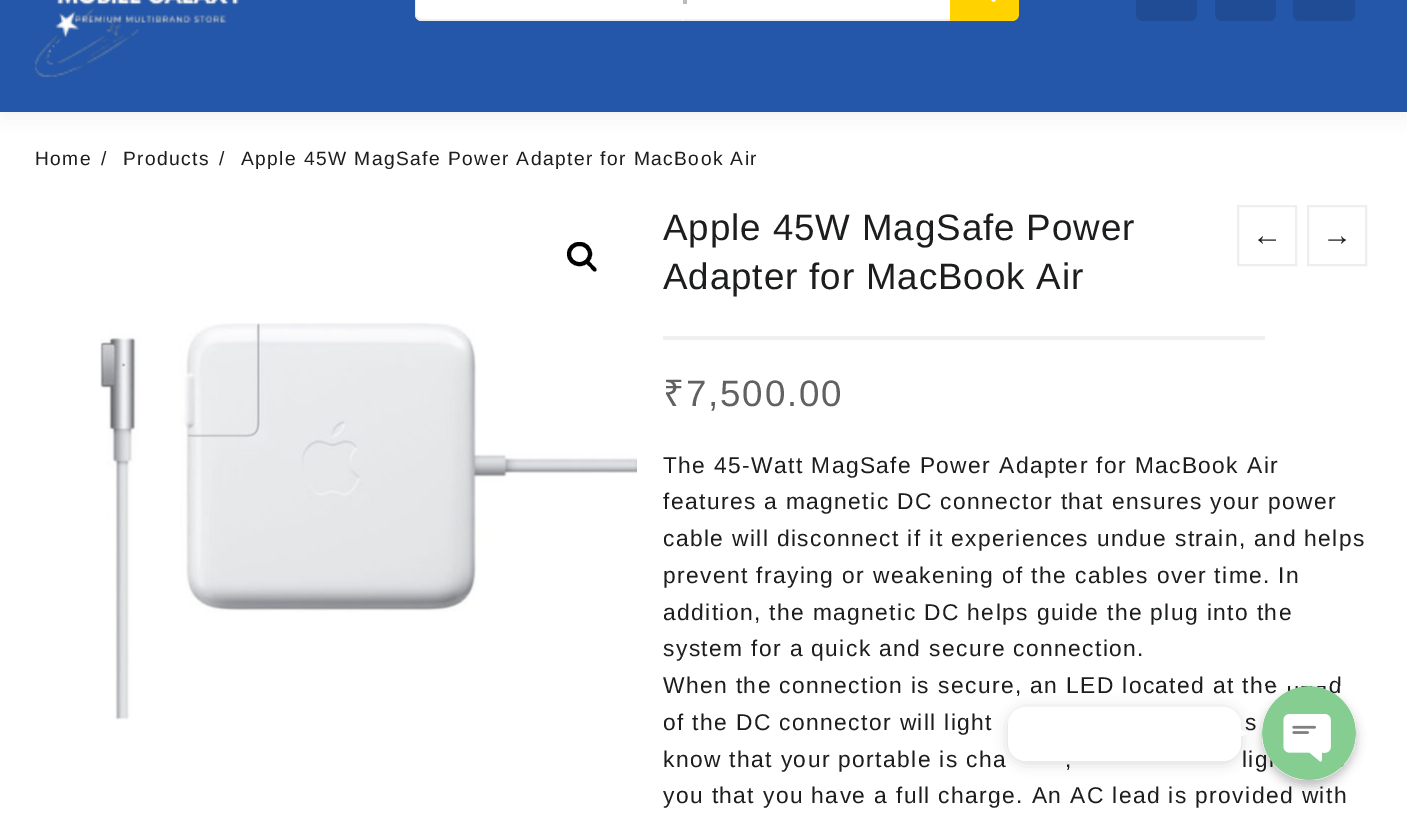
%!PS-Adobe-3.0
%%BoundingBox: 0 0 1407 830
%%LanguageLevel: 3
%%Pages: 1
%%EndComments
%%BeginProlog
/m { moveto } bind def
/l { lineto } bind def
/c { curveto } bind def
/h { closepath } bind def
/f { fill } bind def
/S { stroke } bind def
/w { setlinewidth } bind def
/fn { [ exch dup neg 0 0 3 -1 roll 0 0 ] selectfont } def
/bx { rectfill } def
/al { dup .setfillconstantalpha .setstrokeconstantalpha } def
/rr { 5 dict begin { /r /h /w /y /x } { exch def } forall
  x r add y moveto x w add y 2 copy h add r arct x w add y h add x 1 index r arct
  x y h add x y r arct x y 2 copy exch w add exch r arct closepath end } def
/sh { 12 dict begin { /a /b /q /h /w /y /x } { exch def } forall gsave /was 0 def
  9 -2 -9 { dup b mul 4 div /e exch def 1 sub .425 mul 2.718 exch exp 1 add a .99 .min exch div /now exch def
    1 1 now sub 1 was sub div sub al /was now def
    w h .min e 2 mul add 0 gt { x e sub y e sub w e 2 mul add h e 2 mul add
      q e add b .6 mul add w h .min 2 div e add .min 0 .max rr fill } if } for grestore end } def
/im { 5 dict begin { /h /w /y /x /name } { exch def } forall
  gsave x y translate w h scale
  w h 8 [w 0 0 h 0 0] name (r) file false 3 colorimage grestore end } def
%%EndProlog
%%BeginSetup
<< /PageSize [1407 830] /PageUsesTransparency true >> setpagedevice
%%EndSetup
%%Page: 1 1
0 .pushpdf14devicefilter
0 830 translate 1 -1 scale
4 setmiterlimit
1 setgray
0 0 1407 830 bx
0 setgray
2 -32 1403 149 0 10.5 0.06 sh
0.141 0.341 0.667 setrgbcolor
0 0 1407 112 bx
(image0.raw) 35 0 204 77 im
1 setgray
422 -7 m 683 -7 l 683 21 l 422 21 l 418 21 415 18 415 14 c 415 0 l 415 -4 418 -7 422 -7 c h f
0.933 setgray
422 -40 m 682 -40 l 682 21 l 422 21 l 418 21 415 18 415 14 c 415 -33 l 415 -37 418 -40 422 -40 c h 422 -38 m 682 -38 l 682 19 l 422 19 l 419 19 416 17 416 14 c 416 -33 l 416 -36 419 -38 422 -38 c h eofill
1 setgray
683 0 267 19 bx
0.933 setgray
683 19 267 2 bx
1 0.824 0 setrgbcolor
950 -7 m 1012 -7 l 1016 -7 1019 -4 1019 0 c 1019 14 l 1019 18 1016 21 1012 21 c 950 21 l h f
(image1.raw) 991 0 5 2 im
0.733 setgray
683 0 4 4 bx
0.122 0.298 0.58 setrgbcolor
1136 -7 61 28 7 rr f
1215 -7 61 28 7 rr f
1293 -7 62 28 7 rr f
/LiberationSans-Regular 19.25 fn
0.11 0.114 0.118 setrgbcolor
35 165 m 1.4 0 (Home) ashow
101 165 m 1.4 0 (/) ashow
123 165 m 1.4 0 (Products) ashow
219 165 m 1.4 0 (/) ashow
241 165 m 1.4 0 (Apple 45W MagSafe Power Adapter for MacBook Air) ashow
0 setgray
4 w
569 244 21 20 10 rr S
586 261 m 588 259 591.5 263.5 592.5 265 c 593.5 266 598 269 596 271 c 594 273 591 268.5 590 267 c 589 266 584 263 586 261 c h f
(image2.raw) 100 323 537 397 im
0.941 setgray
663 336 602 4 bx
/LiberationSans-Regular 36.75 fn
0.11 0.114 0.118 setrgbcolor
663 240 m 0.9 0 (Apple 45W MagSafe Power) ashow
663 289 m 0.9 0 (Adapter for MacBook Air) ashow
0.933 setgray
2 w
1238 206 58 59 rectstroke
/LiberationSans-Regular 30 fn
0.11 0.114 0.118 setrgbcolor
1252 245 m 1.4 0 (←) ashow
0.933 setgray
1308 206 58 59 rectstroke
0.11 0.114 0.118 setrgbcolor
1322 245 m 1.4 0 (→) ashow
/NotoSans-Regular 36.75 fn
0.384 0.376 0.376 setrgbcolor
663 406 m 1.75 0 (₹) ashow
/LiberationSans-Regular 36.75 fn
686 406 m 1.75 0 (7,500.00) ashow
/LiberationSans-Regular 22.75 fn
0.11 0.114 0.118 setrgbcolor
663 473 m 1.4 0 (The 45-Watt MagSafe Power Adapter for MacBook Air) ashow
663 509 m 1.4 0 (features a magnetic DC connector that ensures your power) ashow
663 546 m 1.4 0 (cable will disconnect if it experiences undue strain, and helps) ashow
663 583 m 1.4 0 (prevent fraying or weakening of the cables over time. In) ashow
663 620 m 1.4 0 (addition, the magnetic DC helps guide the plug into the) ashow
663 656 m 1.4 0 (system for a quick and secure connection.) ashow
663 693 m 1.4 0 (When the connection is secure, an LED located at the) ashow
1329 693 m 1.4 0 (d) ashow
663 730 m 1.4 0 (of the DC connector will light) ashow
1245 730 m 1.4 0 (s) ashow
663 767 m 1.4 0 (know that your portable is cha) ashow
1065 767 m 1.4 0 (,) ashow
1242 767 m 1.4 0 (lig) ashow
663 803 m 1.4 0 (you that you have a full charge. An AC lead is provided with) ashow
0 setgray
1262 691 94 95 47 5 0.25 sh
(image3.raw) 1262 686 94 94 im
1008 709 233 54 18 7 0.15 sh
1 setgray
1008 707 233 54 18 rr f
1230 742 m 1230 724.5 l 1248 733 l h f
.poppdf14devicefilter showpage
%%EOF
